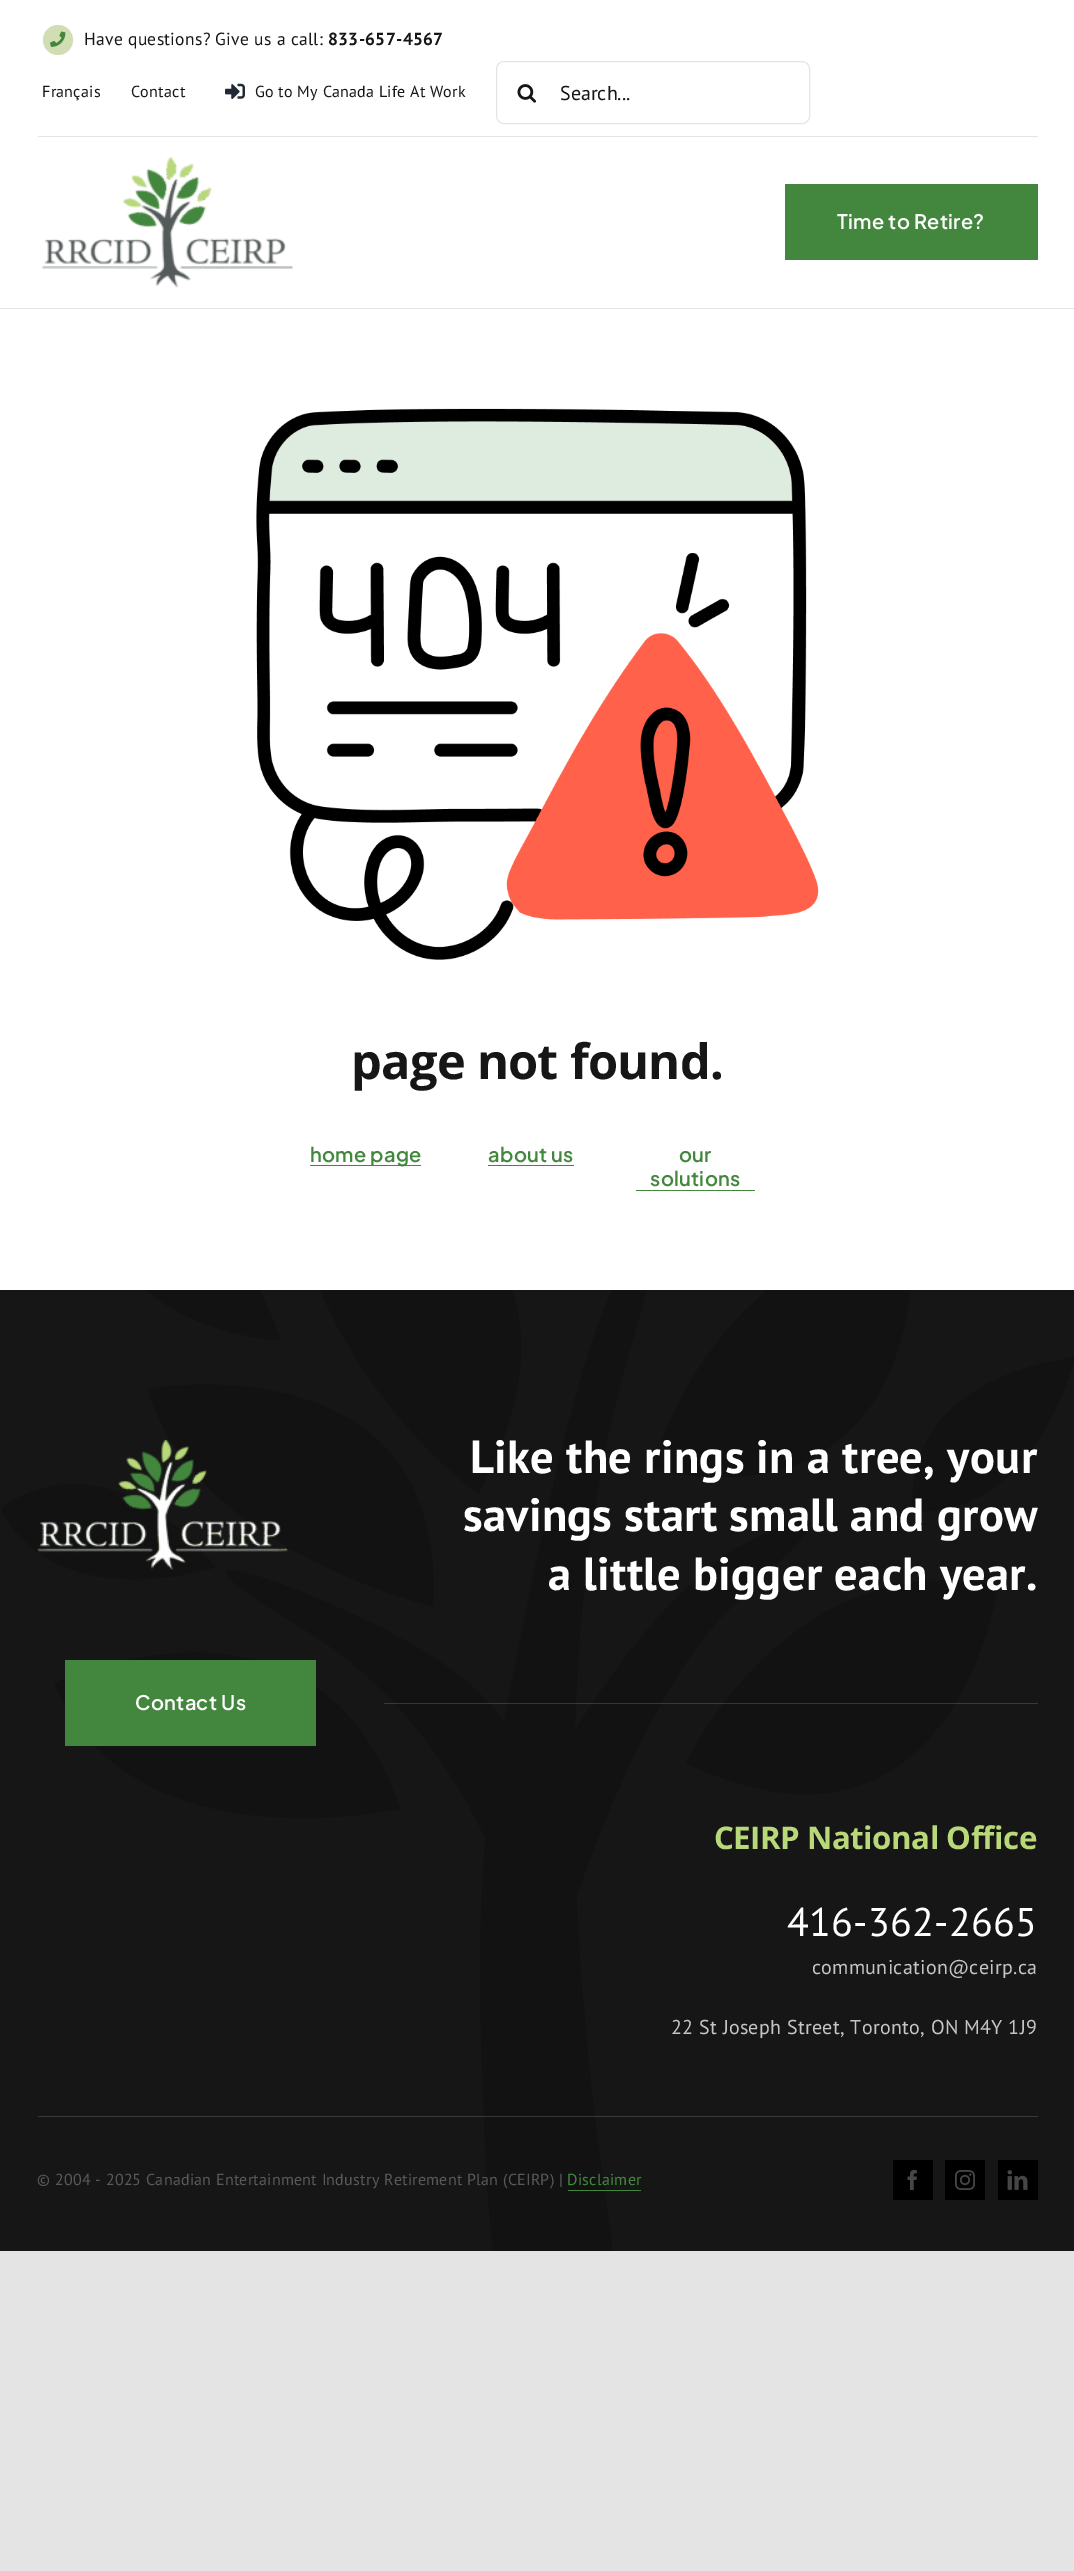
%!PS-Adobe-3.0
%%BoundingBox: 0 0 1074 2571
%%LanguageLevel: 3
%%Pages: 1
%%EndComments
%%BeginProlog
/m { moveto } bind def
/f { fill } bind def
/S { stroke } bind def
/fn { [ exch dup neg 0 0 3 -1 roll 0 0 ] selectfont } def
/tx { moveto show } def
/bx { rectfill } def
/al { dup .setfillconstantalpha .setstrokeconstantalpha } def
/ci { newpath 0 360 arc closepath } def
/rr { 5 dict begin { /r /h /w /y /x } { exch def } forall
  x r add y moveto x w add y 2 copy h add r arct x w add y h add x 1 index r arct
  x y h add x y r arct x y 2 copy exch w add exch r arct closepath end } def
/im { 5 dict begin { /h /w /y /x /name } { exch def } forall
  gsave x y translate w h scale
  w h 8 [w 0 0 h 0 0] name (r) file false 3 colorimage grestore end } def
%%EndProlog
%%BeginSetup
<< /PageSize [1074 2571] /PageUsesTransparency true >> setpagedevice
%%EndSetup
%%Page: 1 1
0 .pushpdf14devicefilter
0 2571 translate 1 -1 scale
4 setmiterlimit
0.894 setgray
0 0 1074 2571 bx
1 setgray
0 0 1074 1290 bx
0.894 setgray
38 136 1000 1 bx
0.82 0.867 0.702 setrgbcolor
58 40 15 ci f
(image0.raw) 50 31 16 16 im
/PTSans-Regular 17.5 fn
0.086 setgray
84 45 m 0.3 0 (Have questions? Give us a call:) ashow
/PTSans-Bold 17.5 fn
328 45 m 0.3 0 (833-657-4567) ashow
/PTSans-Regular 16 fn
42 97 m 0.25 0 (Français) ashow
131 97 m 0.25 0 (Contact) ashow
(image1.raw) 225 83 20 16 im
255 97 m 0.25 0 (Go to My Canada Life At Work) ashow
0.894 setgray
496.5 61.5 313 62 7.5 rr S
(image2.raw) 517 84 20 19 im
/PTSans-Regular 20 fn
0.086 setgray
(Search...) 560 100 tx
0.894 setgray
0 308 1074 1 bx
(image3.raw) 42 157 251 131 im
0.263 0.529 0.247 setrgbcolor
785 184 253 76 bx
/PlusJakartaSans-SemiBold 20 fn
1 setgray
837 229 m 0.3 0 (Time to Retire?) ashow
(image4.raw) 256 408 563 552 im
/OpenSans-Bold 48.75 fn
0.086 setgray
351 1079 m -0.75 0 (page not found.) ashow
/PlusJakartaSans-SemiBold 20 fn
0.263 0.529 0.247 setrgbcolor
310 1162 m 0.3 0 (home page) ashow
310 1165 111 1 bx
488 1162 m 0.3 0 (about us) ashow
488 1165 86 1 bx
679 1162 m 0.3 0 (our) ashow
650 1186 m 0.3 0 (solutions) ashow
636 1190 119 1 bx
0.086 setgray
0 1290 1074 961 bx
(image5.raw) 1 1290 1073 961 im
(image6.raw) 37 1440 251 130 im
/PTSans-Bold 46.5 fn
1 setgray
470 1473 m 0.3 0 (Like the rings in a tree, your) ashow
463 1531 m 0.3 0 (savings start small and grow) ashow
548 1590 m 0.3 0 (a little bigger each year.) ashow
0.263 0.529 0.247 setrgbcolor
65 1660 251 86 bx
/PlusJakartaSans-SemiBold 20 fn
1 setgray
135 1710 m 0.3 0 (Contact Us) ashow
0.15 al
384 1703 654 1 bx
/OpenSans-Bold 31.25 fn
1 al
0.722 0.847 0.478 setrgbcolor
714 1849 m -0.5 0 (CEIRP National Office) ashow
/PTSans-Regular 40 fn
1 setgray
787 1936 m 0.3 0 (416-362-2665) ashow
/PTSans-Regular 20 fn
0.773 setgray
812 1974 m 0.3 0 (communication@ceirp.ca) ashow
671 2034 m 0.3 0 (22 St Joseph Street, Toronto, ON M4Y 1J9) ashow
0.15 al
1 setgray
38 2116 1000 1 bx
/PTSans-Regular 16 fn
1 al
0.349 setgray
37 2185 m 0.25 0 (© 2004 - 2025 Canadian Entertainment Industry Retirement Plan \(CEIRP\) |) ashow
0.263 0.529 0.247 setrgbcolor
567 2185 m 0.25 0 (Disclaimer) ashow
568 2190 73 1 bx
0 setgray
893 2160 40 40 bx
(image7.raw) 907 2170 10 20 im
945 2160 40 40 bx
(image8.raw) 955 2170 20 20 im
998 2160 40 40 bx
(image9.raw) 1007 2170 21 20 im
.poppdf14devicefilter showpage
%%EOF
